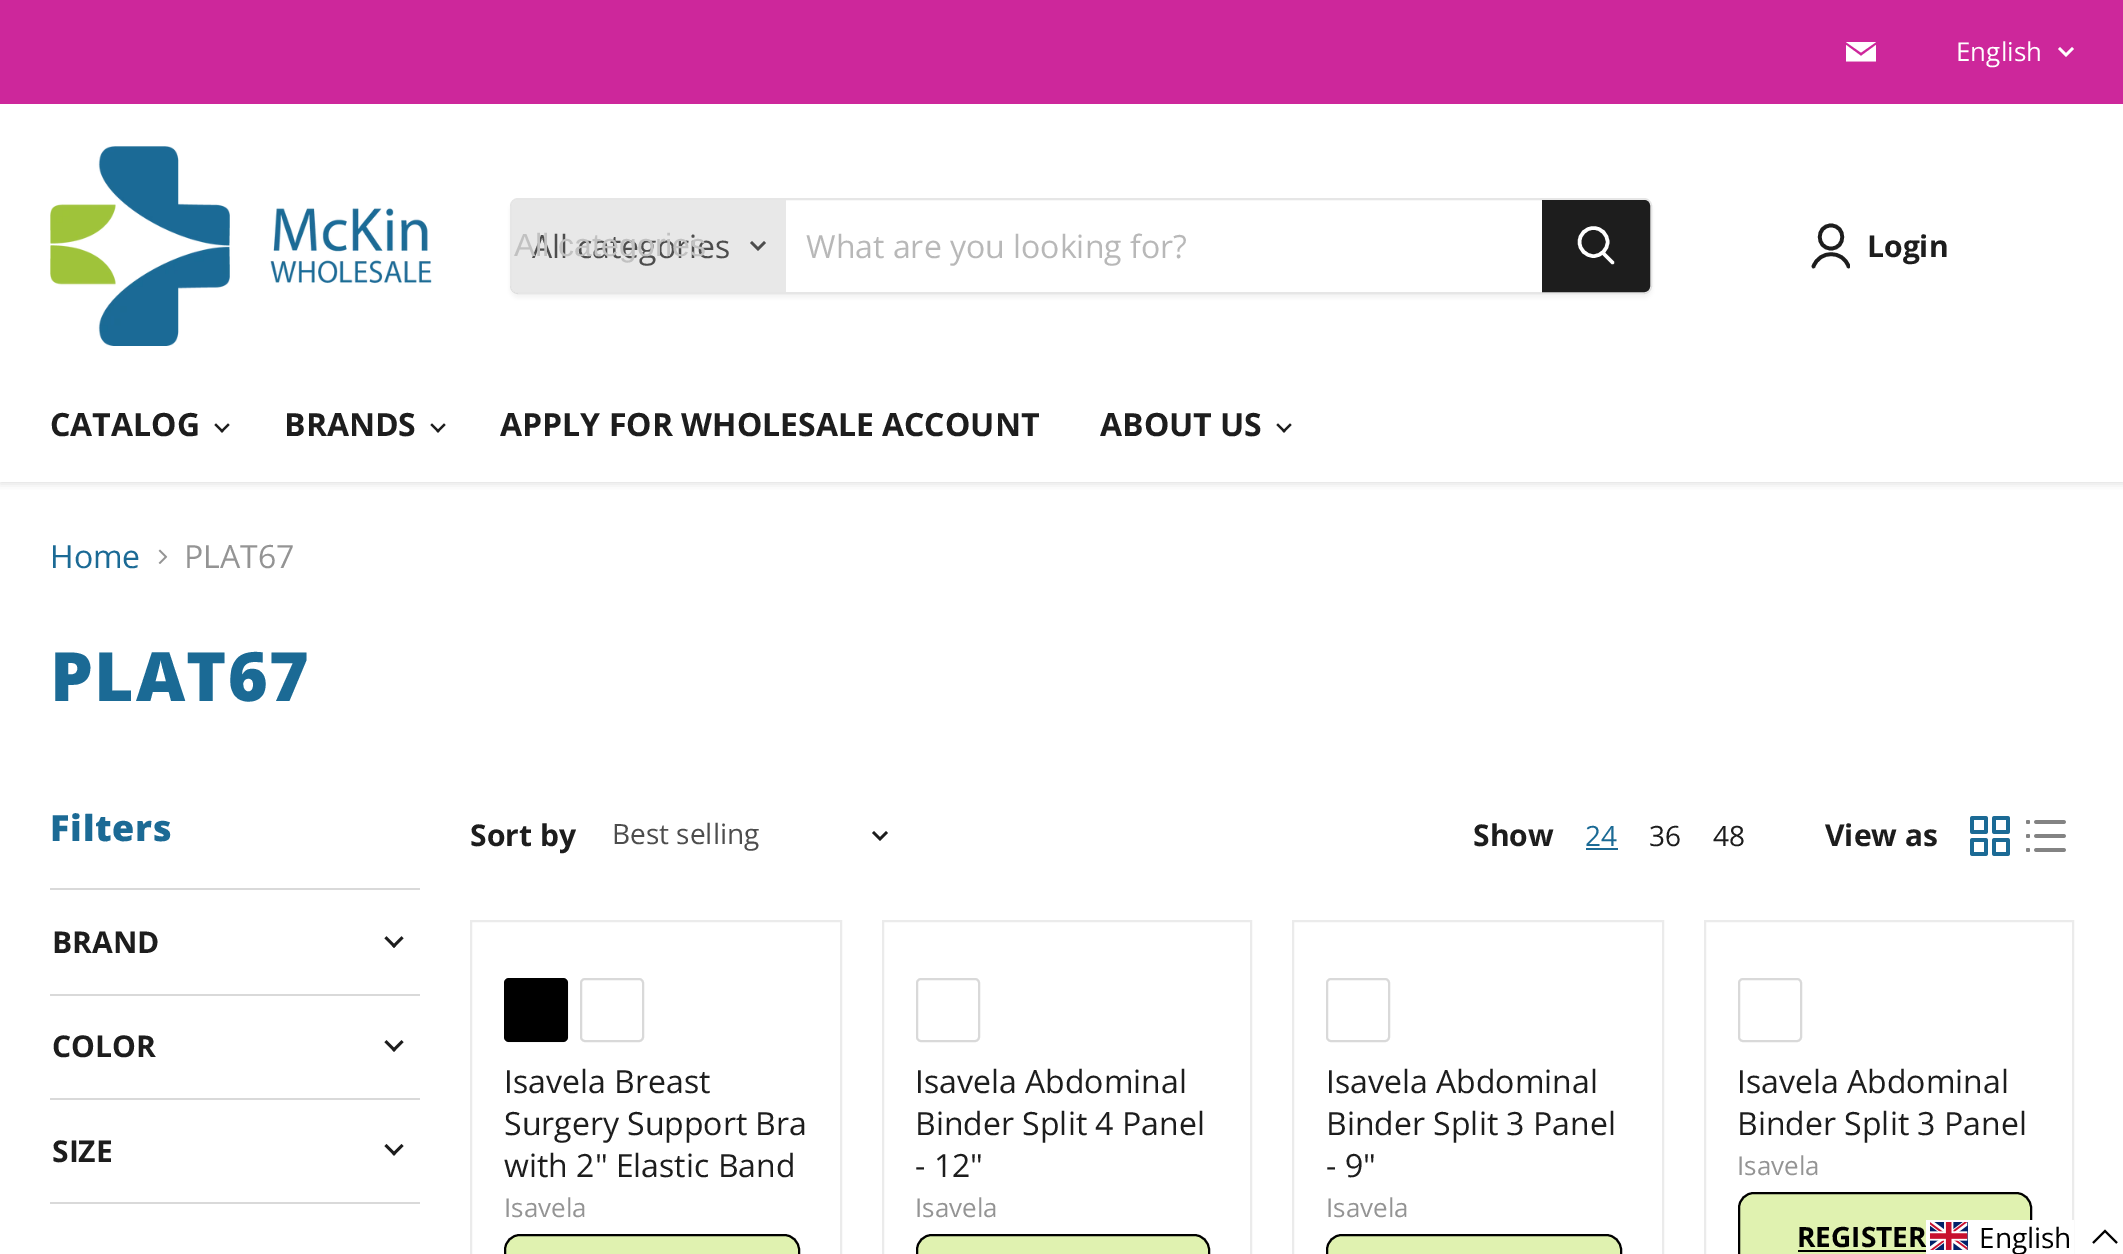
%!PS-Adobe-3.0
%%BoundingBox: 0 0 2123 1254
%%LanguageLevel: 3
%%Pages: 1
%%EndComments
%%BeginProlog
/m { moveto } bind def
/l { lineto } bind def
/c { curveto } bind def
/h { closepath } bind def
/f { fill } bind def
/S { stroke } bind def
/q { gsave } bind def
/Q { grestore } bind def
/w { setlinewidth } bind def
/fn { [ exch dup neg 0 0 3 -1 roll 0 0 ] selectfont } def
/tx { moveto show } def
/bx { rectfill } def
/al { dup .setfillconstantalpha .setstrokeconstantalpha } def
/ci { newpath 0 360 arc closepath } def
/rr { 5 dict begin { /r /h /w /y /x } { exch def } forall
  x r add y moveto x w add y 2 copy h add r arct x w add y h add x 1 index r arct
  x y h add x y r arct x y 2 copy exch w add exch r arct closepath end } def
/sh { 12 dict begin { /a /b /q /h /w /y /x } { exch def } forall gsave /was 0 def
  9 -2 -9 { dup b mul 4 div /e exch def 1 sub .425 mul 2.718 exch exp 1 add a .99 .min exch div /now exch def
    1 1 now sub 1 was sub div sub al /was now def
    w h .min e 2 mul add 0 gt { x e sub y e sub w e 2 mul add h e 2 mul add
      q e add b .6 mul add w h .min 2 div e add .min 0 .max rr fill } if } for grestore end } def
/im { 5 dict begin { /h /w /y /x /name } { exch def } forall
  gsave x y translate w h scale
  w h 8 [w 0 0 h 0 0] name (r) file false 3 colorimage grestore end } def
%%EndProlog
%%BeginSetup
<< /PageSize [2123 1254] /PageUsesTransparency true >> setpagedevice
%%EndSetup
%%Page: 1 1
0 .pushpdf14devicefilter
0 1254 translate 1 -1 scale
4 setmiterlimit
1 setgray
0 0 2123 1254 bx
q
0 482 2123 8 rectclip
0.502 setgray
0 108 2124 376 0 4 0.25 sh
Q
0.804 0.153 0.608 setrgbcolor
0 0 2123 104 bx
1 setgray
0 104 2123 2 bx
1876 42 m 1846 42 l 1861 52.5 l h 1861 56 m 1846 45 l 1846 61.5 l 1876 61.5 l 1876 45 l h eofill
/OpenSans-Regular 26 fn
(English) 1956 61 tx
2.5 w
2 setlinecap
2066 55 m 2072 49 l 2066 55 m 2060 49 l S
(image0.raw) 50 146 382 200 im
q
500 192 m 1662 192 l 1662 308 l 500 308 l h 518 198 m 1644 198 l 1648.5 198 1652 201.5 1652 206 c 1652 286 l 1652 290.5 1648.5 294 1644 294 c 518 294 l 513.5 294 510 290.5 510 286 c 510 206 l 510 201.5 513.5 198 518 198 c h eoclip newpath
0.502 setgray
510 202 1142 96 8 3 0.11 sh
Q
0.2 al
0.502 setgray
2 w
0 setlinecap
511 199 1140 94 7 rr S
1 al
0.91 setgray
518 200 m 786 200 l 786 292 l 518 292 l 514.5 292 512 289.5 512 286 c 512 206 l 512 202.5 514.5 200 518 200 c h f
/OpenSans-Regular 32 fn
0.302 setgray
(All categories) 532 258 tx
/LiberationSans-Regular 32 fn
0.757 setgray
(All categories) 514 256 tx
0.302 setgray
2.5 w
2 setlinecap
758 249 m 764 243 l 758 249 m 752 243 l S
/OpenSans-Regular 32 fn
0.722 setgray
(What are you looking for?) 806 258 tx
0.114 setgray
1543 201 m 1644 201 l 1647 201 1649 203 1649 206 c 1649 286 l 1649 289 1647 291 1644 291 c 1543 291 l h q f Q
2 w
0 setlinecap
S
1 setgray
3.5 w
1 setlinecap
1612.5 262.5 m 1603 253 l S
0 setlinecap
1593.5 242 14 ci S
0.114 setgray
3.7 w
1 setlinecap
1 setlinejoin
1831 248.5 m 1846 248.5 1846 225.5 1831 225.5 c 1816 225.5 1816 248.5 1831 248.5 c h S
q
1810 222 40 48 rectclip
1848.5 266.5 m 1843 250 1819.5 250 1813.5 266.5 c S
Q
/OpenSans-Bold 30 fn
(Login) 1867 257 tx
/OpenSans-Bold 32 fn
(CATALOG) 50 436 tx
(image1.raw) 214 423 16 10 im
(BRANDS) 284 436 tx
(image1.raw) 430 423 16 10 im
(APPLY FOR WHOLESALE ACCOUNT) 500 436 tx
(ABOUT US) 1100 436 tx
(image1.raw) 1276 423 16 10 im
/OpenSans-Regular 32 fn
0.106 0.416 0.584 setrgbcolor
(Home) 50 568 tx
(image2.raw) 158 549 10 15 im
0.58 setgray
(PLAT67) 184 568 tx
/OpenSans-ExtraBold 68 fn
0.106 0.416 0.584 setrgbcolor
50 701 m 1.5 0 (PLAT67) ashow
/OpenSans-ExtraBold 36 fn
50 841 m 0.75 0 (Filters) ashow
0.851 setgray
50 888 370 2 bx
/OpenSans-Bold 30 fn
0.114 setgray
(BRAND) 52 953 tx
(image3.raw) 384 936 20 12 im
0.851 setgray
50 994 370 2 bx
0.114 setgray
(COLOR) 52 1057 tx
(image4.raw) 384 1040 20 12 im
0.851 setgray
50 1098 370 2 bx
50 1202 370 2 bx
0.114 setgray
(SIZE) 52 1162 tx
(image5.raw) 384 1144 20 12 im
(Sort by) 470 846 tx
/OpenSans-Regular 28 fn
0.302 setgray
(Best selling) 612 844 tx
0.114 setgray
2.5 w
2 setlinecap
0 setlinejoin
880 839 m 886 833 l 880 839 m 874 833 l S
/OpenSans-Bold 30 fn
(Show) 1473 846 tx
/OpenSans-Regular 28 fn
0.106 0.416 0.584 setrgbcolor
(24) 1585 846 tx
1586 848 32 2 bx
0.114 setgray
(36) 1649 846 tx
(48) 1713 846 tx
/OpenSans-Bold 30 fn
(View as) 1825 846 tx
(image6.raw) 1970 816 40 40 im
(image7.raw) 2026 820 40 32 im
0.922 setgray
2 w
0 setlinecap
471 921 370 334 rectstroke
0 setgray
504 978 64 64 5 rr f
0.15 al
505 979 62 62 4 rr S
1 al
0.851 setgray
581 979 62 62 4 rr S
/OpenSans-Regular 32 fn
0.114 setgray
(Isavela Breast) 504 1093 tx
(Surgery Support Bra) 504 1135 tx
(with 2" Elastic Band) 504 1177 tx
/OpenSans-Regular 26 fn
0.58 setgray
(Isavela) 504 1217 tx
0.878 0.949 0.69 setrgbcolor
505 1235 294 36 15 rr q f Q
0 setgray
S
0.922 setgray
883 921 368 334 rectstroke
0.851 setgray
917 979 62 62 4 rr S
/OpenSans-Regular 32 fn
0.114 setgray
(Isavela Abdominal) 915 1093 tx
(Binder Split 4 Panel) 915 1135 tx
(- 12") 915 1177 tx
/OpenSans-Regular 26 fn
0.58 setgray
(Isavela) 915 1217 tx
0.878 0.949 0.69 setrgbcolor
917 1235 292 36 15 rr q f Q
0 setgray
S
0.922 setgray
1293 921 370 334 rectstroke
0.851 setgray
1327 979 62 62 4 rr S
/OpenSans-Regular 32 fn
0.114 setgray
(Isavela Abdominal) 1326 1093 tx
(Binder Split 3 Panel) 1326 1135 tx
(- 9") 1326 1177 tx
/OpenSans-Regular 26 fn
0.58 setgray
(Isavela) 1326 1217 tx
0.878 0.949 0.69 setrgbcolor
1327 1235 294 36 15 rr q f Q
0 setgray
S
0.922 setgray
1705 921 368 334 rectstroke
0.851 setgray
1739 979 62 62 4 rr S
/OpenSans-Regular 32 fn
0.114 setgray
(Isavela Abdominal) 1737 1093 tx
(Binder Split 3 Panel) 1737 1135 tx
/OpenSans-Regular 26 fn
0.58 setgray
(Isavela) 1737 1175 tx
0.878 0.949 0.69 setrgbcolor
1739 1193 292 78 15 rr q f Q
0 setgray
S
/OpenSans-Bold 28 fn
(REGISTER) 1797 1247 tx
1798 1250 128 2 bx
1 setgray
1926 1220 148 34 bx
(image8.raw) 1930 1222 38 28 im
/OpenSans-Regular 28 fn
0 setgray
(English) 1979 1248 tx
2117 1243 m 2105 1231 l 2093 1243 l S
.poppdf14devicefilter showpage
%%EOF
